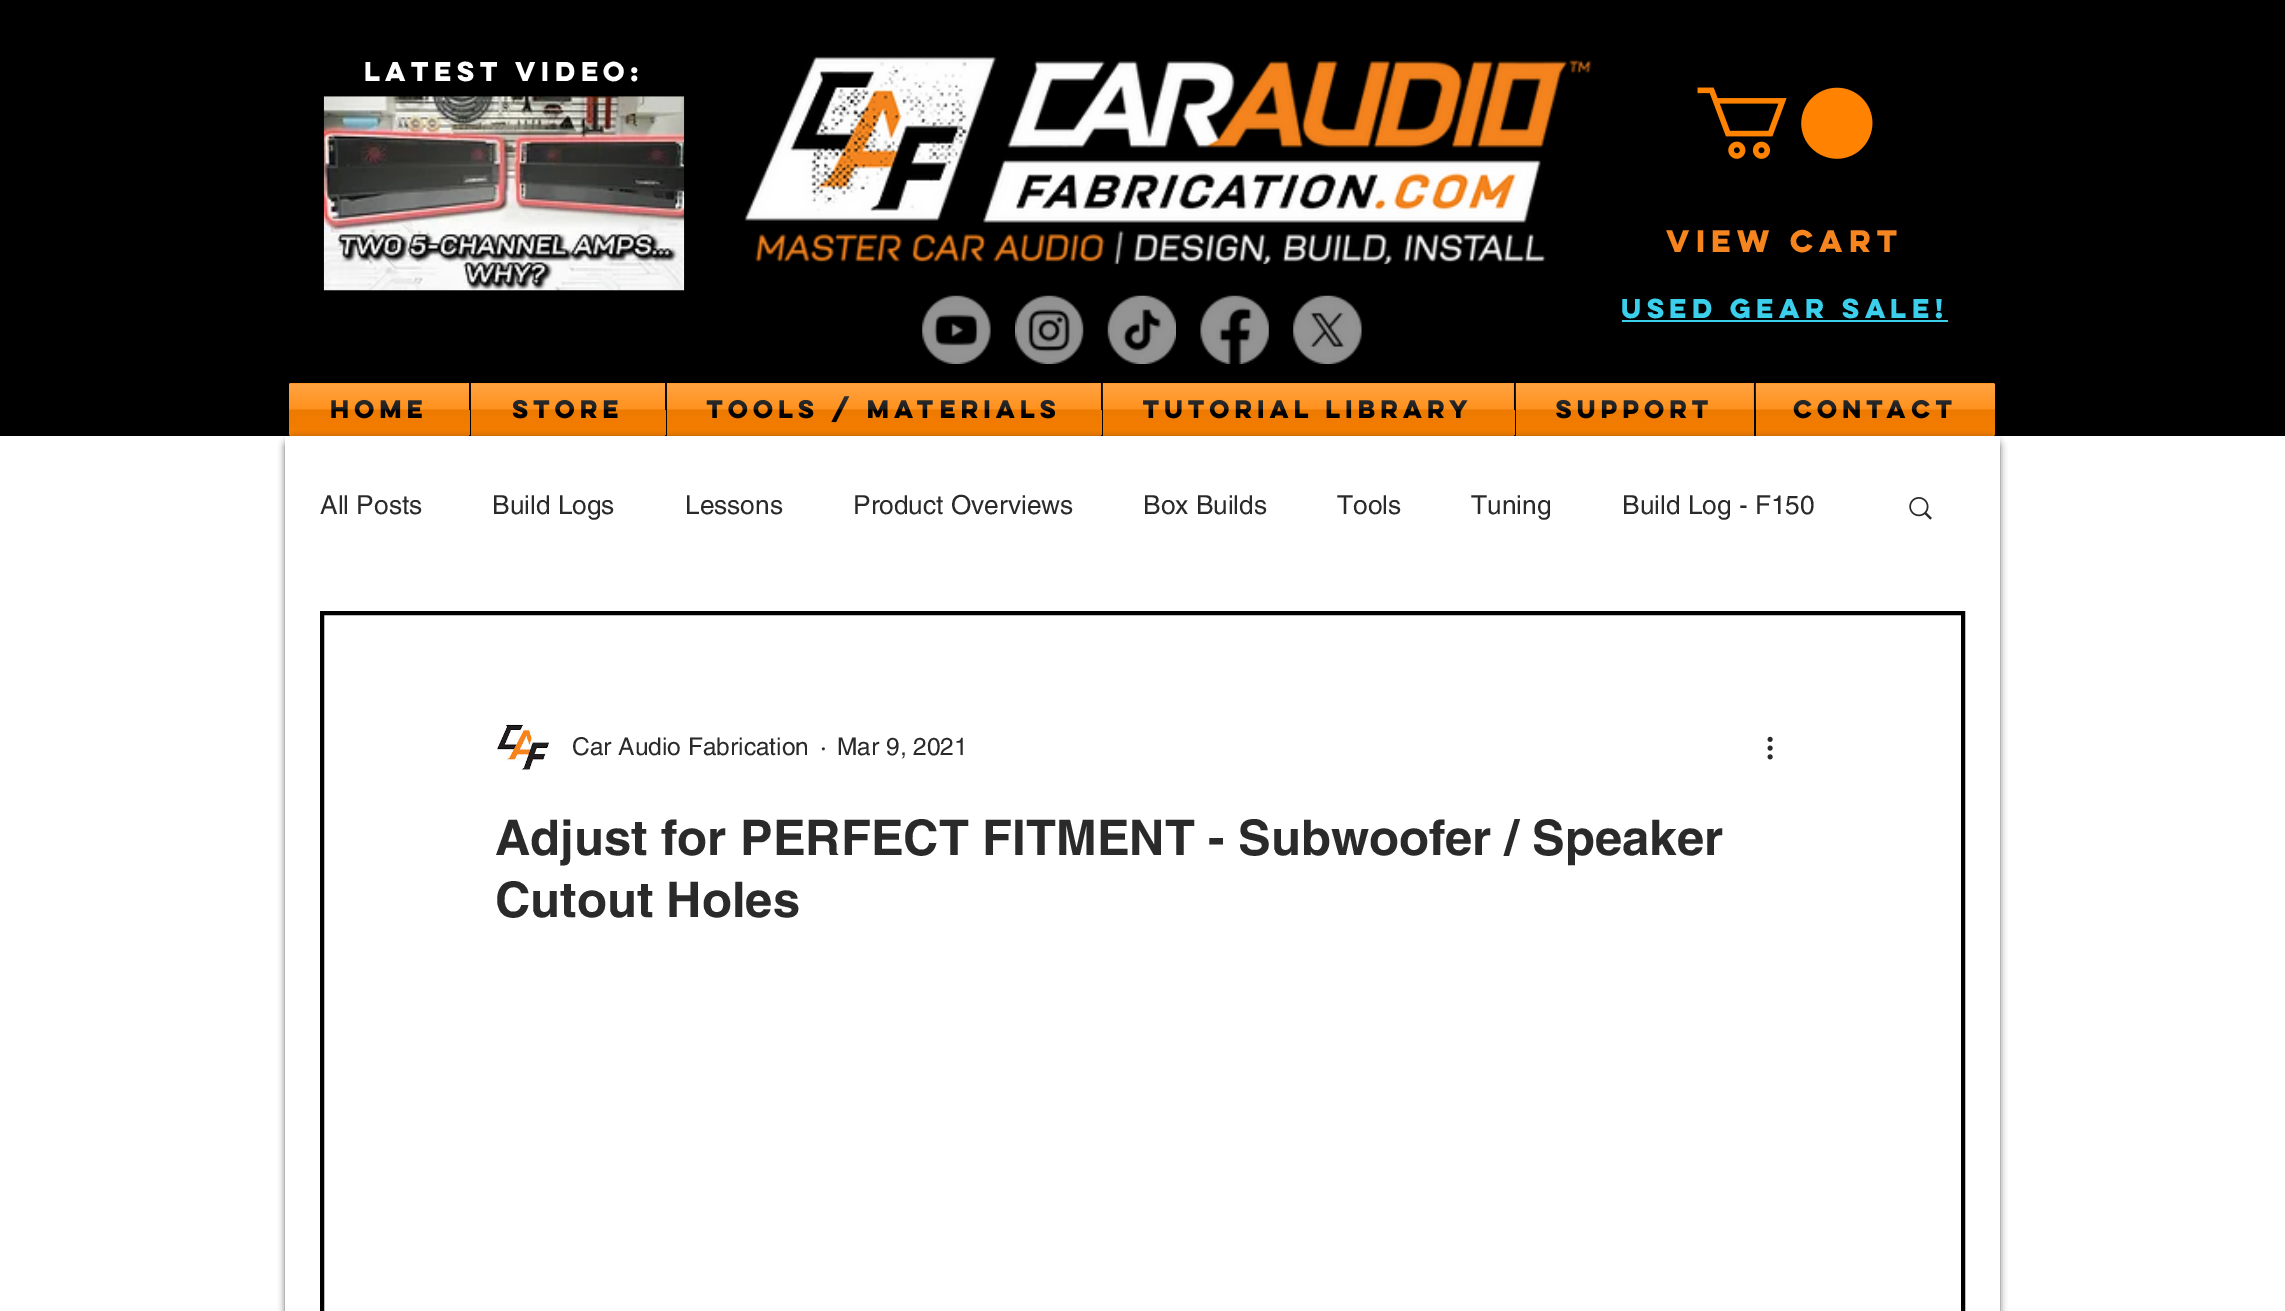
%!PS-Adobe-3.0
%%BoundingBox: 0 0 2285 1311
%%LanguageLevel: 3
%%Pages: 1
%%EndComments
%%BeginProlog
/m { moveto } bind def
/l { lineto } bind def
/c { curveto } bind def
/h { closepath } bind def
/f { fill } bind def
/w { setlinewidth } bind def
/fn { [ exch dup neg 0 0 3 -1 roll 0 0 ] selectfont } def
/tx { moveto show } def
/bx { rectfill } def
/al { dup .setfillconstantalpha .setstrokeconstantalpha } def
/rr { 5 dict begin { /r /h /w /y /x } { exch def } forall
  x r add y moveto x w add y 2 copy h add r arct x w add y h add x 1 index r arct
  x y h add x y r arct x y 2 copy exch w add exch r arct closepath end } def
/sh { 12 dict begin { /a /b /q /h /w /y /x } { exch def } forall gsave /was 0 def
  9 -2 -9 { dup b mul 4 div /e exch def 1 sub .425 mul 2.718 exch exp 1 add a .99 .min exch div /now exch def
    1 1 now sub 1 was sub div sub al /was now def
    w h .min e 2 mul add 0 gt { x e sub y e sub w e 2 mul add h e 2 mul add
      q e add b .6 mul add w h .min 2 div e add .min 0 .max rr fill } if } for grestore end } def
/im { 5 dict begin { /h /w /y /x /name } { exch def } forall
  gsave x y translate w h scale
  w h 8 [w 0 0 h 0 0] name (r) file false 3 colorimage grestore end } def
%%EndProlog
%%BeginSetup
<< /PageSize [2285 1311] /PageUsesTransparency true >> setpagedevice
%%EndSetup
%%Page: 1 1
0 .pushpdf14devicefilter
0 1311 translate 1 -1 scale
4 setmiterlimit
1 setgray
0 0 2285 1311 bx
0 setgray
0 0 2285 436 bx
/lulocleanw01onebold-Bold 24.5 fn
1 setgray
(LATEST VIDEO:) 364 81 tx
(image0.raw) 744 56 848 209 im
(image1.raw) 323 96 362 195 im
(image2.raw) 1697 87 176 72 im
/lulocleanw01onebold-Bold 28 fn
0.965 0.522 0.122 setrgbcolor
(VIEW CART) 1666 252 tx
(image3.raw) 922 295 69 69 im
(image4.raw) 1015 295 69 69 im
(image5.raw) 1107 295 69 69 im
(image6.raw) 1200 295 69 69 im
(image7.raw) 1293 295 69 69 im
/lulocleanw01onebold-Bold 24.5 fn
0.231 0.812 0.925 setrgbcolor
(USED GEAR SALE!) 1621 318 tx
1622 320 326 2 bx
(image8.raw) 289 383 1706 52 im
1 0.514 0 setrgbcolor
291 383 m 469 383 l 469 436 l 291 436 l 290 436 289 435 289 434 c 289 385 l 289 384 290 383 291 383 c h f
/lulocleanw01onebold-Bold 22.75 fn
0 setgray
(Home) 330 418 tx
(image9.raw) 289 383 180 52 im
1 0.514 0 setrgbcolor
471 383 194 53 bx
0 setgray
469 383 2 27 bx
(Store) 512 418 tx
(image10.raw) 470 383 195 53 im
1 0.514 0 setrgbcolor
667 383 434 53 bx
0 setgray
665 383 2 27 bx
(Tools / Materials) 706 418 tx
(image11.raw) 666 383 435 53 im
1 0.514 0 setrgbcolor
1103 383 411 53 bx
0 setgray
1101 383 2 27 bx
(Tutorial Library) 1143 418 tx
(image12.raw) 1102 383 412 53 im
1 0.514 0 setrgbcolor
1516 383 238 53 bx
0 setgray
1514 383 2 27 bx
(Support) 1556 418 tx
(image13.raw) 1515 383 239 53 im
1 0.514 0 setrgbcolor
1754 383 m 1993 383 l 1994 383 1995 384 1995 385 c 1995 434 l 1995 435 1994 436 1993 436 c 1754 436 l h f
0 setgray
1754 383 2 53 bx
(Contact) 1793 418 tx
(image14.raw) 1755 383 240 52 im
285 438 1715 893 9 3.5 0.6 sh
1 setgray
285 436 1715 875 bx
/helvetica-Regular 26.25 fn
0.165 setgray
(All Posts) 320 514 tx
(Build Logs) 492 514 tx
(Lessons) 685 514 tx
(Product Overviews) 853 514 tx
(Box Builds) 1143 514 tx
(Tools) 1337 514 tx
(Tuning) 1471 514 tx
(Build Log - F150) 1622 514 tx
(image15.raw) 1909 497 23 23 im
0 setgray
4 w
322 613 1641 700 rectstroke
(image16.raw) 497 724 53 46 im
/helvetica-Regular 24.5 fn
0.165 setgray
(Car Audio Fabrication) 572 755 tx
(·) 820 755 tx
(Mar 9, 2021) 837 755 tx
(image17.raw) 1767 736 6 24 im
/helvetica-Bold 49 fn
(Adjust for PERFECT FITMENT - Subwoofer / Speaker) 495 855 tx
(Cutout Holes) 495 917 tx
.poppdf14devicefilter showpage
%%EOF
